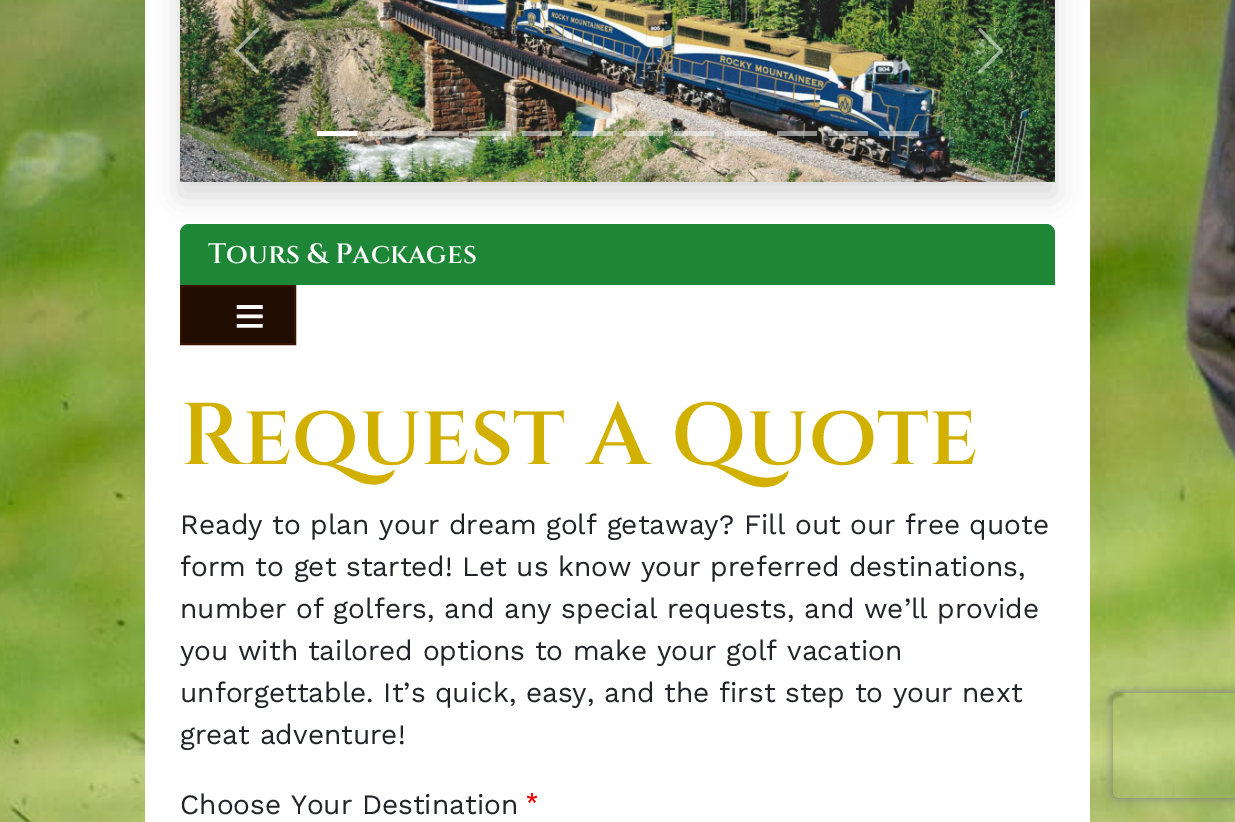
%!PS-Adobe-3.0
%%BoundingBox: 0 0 1235 822
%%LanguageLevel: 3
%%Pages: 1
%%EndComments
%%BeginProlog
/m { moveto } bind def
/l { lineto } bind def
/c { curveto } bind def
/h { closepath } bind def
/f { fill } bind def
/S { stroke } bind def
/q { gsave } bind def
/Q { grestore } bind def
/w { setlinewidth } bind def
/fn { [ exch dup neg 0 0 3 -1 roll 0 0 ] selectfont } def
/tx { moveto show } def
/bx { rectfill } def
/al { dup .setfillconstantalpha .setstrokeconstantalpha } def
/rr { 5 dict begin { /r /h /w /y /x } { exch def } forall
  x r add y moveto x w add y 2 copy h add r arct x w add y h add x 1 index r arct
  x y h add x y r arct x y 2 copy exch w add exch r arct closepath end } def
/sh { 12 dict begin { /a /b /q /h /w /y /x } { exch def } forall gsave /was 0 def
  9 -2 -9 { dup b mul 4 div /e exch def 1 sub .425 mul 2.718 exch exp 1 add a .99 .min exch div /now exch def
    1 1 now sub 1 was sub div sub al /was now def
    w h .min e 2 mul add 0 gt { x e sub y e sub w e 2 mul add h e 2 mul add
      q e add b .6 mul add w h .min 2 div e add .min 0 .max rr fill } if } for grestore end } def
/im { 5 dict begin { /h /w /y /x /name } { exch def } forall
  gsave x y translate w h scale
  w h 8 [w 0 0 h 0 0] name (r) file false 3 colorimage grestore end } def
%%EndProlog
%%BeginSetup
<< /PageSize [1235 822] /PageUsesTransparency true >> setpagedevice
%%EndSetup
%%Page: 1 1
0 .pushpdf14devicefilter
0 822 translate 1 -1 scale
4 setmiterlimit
1 setgray
0 0 1235 822 bx
(image0.raw) 0 0 1235 822 im
145 0 945 822 bx
0 setgray
180 -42 875 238 0 14 0.15 sh
(image1.raw) 180 0 875 182 im
(image2.raw) 234 28 25 46 im
(image3.raw) 978 28 25 46 im
1 setgray
317 131 40 5 bx
0.5 al
368 131 40 5 bx
418 131 41 5 bx
469 131 42 5 bx
522 131 40 5 bx
572 131 41 5 bx
623 131 40 5 bx
674 131 40 5 bx
725 131 42 5 bx
777 131 40 5 bx
828 131 40 5 bx
879 131 40 5 bx
1 al
0.118 0.529 0.216 setrgbcolor
189 224 m 1046 224 l 1051 224 1055 228 1055 233 c 1055 285 l 180 285 l 180 233 l 180 228 184 224 189 224 c h f
/Cinzel-SemiBold 28 fn
1 setgray
(Tours & Packages) 208 263 tx
0.129 0.047 0.008 setrgbcolor
181 286 m 295 286 l 295 344 l 181 344 l h q f Q
0.22 0.075 0.004 setrgbcolor
2 w
S
/LiberationSerif-Bold 56 fn
1 setgray
(≡) 234 335 tx
/Cinzel-SemiBold 87.5 fn
0.82 0.69 0 setrgbcolor
(Request A Quote) 180 464 tx
/WorkSans-Regular 28 fn
0.129 0.145 0.161 setrgbcolor
(Ready to plan your dream golf getaway? Fill out our free quote) 180 534 tx
(form to get started! Let us know your preferred destinations,) 180 576 tx
(number of golfers, and any special requests, and we’ll provide) 180 618 tx
(you with tailored options to make your golf vacation) 180 660 tx
(unforgettable. It’s quick, easy, and the first step to your next) 180 702 tx
(great adventure!) 180 744 tx
(Choose Your Destination) 180 814 tx
(image4.raw) 527 793 10 10 im
q
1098 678 m 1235 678 l 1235 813 l 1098 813 l h 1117 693 m 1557 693 l 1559 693 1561 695 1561 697 c 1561 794 l 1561 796 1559 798 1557 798 c 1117 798 l 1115 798 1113 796 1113 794 c 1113 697 l 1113 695 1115 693 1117 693 c h eoclip newpath
0.502 setgray
1113 693 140 105 4 4.5 1 sh
Q
.poppdf14devicefilter showpage
%%EOF
